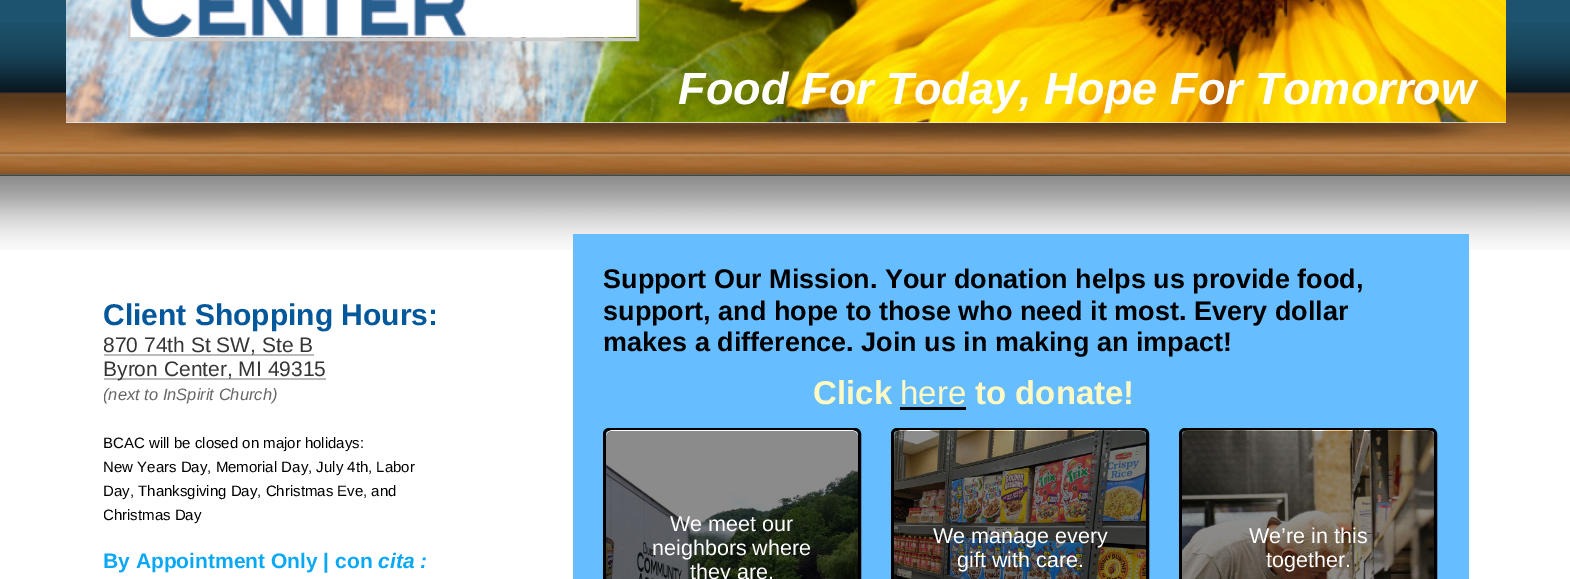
%!PS-Adobe-3.0
%%BoundingBox: 0 0 1570 579
%%LanguageLevel: 3
%%Pages: 1
%%EndComments
%%BeginProlog
/m { moveto } bind def
/f { fill } bind def
/S { stroke } bind def
/q { gsave } bind def
/Q { grestore } bind def
/w { setlinewidth } bind def
/fn { [ exch dup neg 0 0 3 -1 roll 0 0 ] selectfont } def
/tx { moveto show } def
/bx { rectfill } def
/al { dup .setfillconstantalpha .setstrokeconstantalpha } def
/rr { 5 dict begin { /r /h /w /y /x } { exch def } forall
  x r add y moveto x w add y 2 copy h add r arct x w add y h add x 1 index r arct
  x y h add x y r arct x y 2 copy exch w add exch r arct closepath end } def
/im { 5 dict begin { /h /w /y /x /name } { exch def } forall
  gsave x y translate w h scale
  w h 8 [w 0 0 h 0 0] name (r) file false 3 colorimage grestore end } def
%%EndProlog
%%BeginSetup
<< /PageSize [1570 579] /PageUsesTransparency true >> setpagedevice
%%EndSetup
%%Page: 1 1
0 .pushpdf14devicefilter
0 579 translate 1 -1 scale
4 setmiterlimit
1 setgray
0 0 1570 579 bx
0.114 0.325 0.431 setrgbcolor
0 0 1570 176 bx
(image0.raw) 0 23 1570 152 im
(image1.raw) 94 123 1393 22 im
0.933 setgray
66 122 1440 1 bx
(image3.raw) 66 0 1440 123 im
0.8 setgray
3 w
129.5 -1.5 508 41 rectstroke
(image2.raw) 130 0 506 37 im
/LiberationSans-BoldItalic 45 fn
1 setgray
678 104 m 0.1 0 (Food For Today, Hope For Tomorrow) ashow
(image4.raw) 0 176 1570 74 im
/LiberationSans-Bold 30 fn
0.012 0.341 0.608 setrgbcolor
(Client Shopping Hours:) 103 325 tx
0.729 setgray
104 354 210 2 bx
q
104 299 334 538 rectclip
/LiberationSans-Regular 21 fn
0.208 setgray
(870 74th St SW, Ste B) 103 352 tx
Q
104 378 222 2 bx
/LiberationSans-Regular 21 fn
0.208 setgray
(Byron Center, MI 49315) 103 376 tx
q
104 299 334 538 rectclip
/LiberationSans-Italic 16.5 fn
0.4 setgray
(\(next to InSpirit Church\)) 103 400 tx
Q
/LiberationSans-Regular 15 fn
0 setgray
(BCAC will be closed on major holidays:) 103 448 tx
(New Years Day, Memorial Day, July 4th, Labor) 103 472 tx
(Day, Thanksgiving Day, Christmas Eve, and) 103 496 tx
q
104 299 334 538 rectclip
(Christmas Day) 103 520 tx
Q
/LiberationSans-Bold 21 fn
0.035 0.659 0.957 setrgbcolor
(By Appointment Only | con) 103 568 tx
/LiberationSans-BoldItalic 21 fn
(cita :) 378 568 tx
0.4 0.741 1 setrgbcolor
573 234 896 345 bx
/LiberationSans-Bold 27 fn
0 setgray
(Support Our Mission. Your donation helps us provide food,) 603 288 tx
(support, and hope to those who need it most. Every dollar) 603 320 tx
(makes a difference. Join us in making an impact!) 603 351 tx
/LiberationSans-Bold 33 fn
1 0.976 0.769 setrgbcolor
(Click) 813 404 tx
/LiberationSans-Regular 33 fn
(here) 900 404 tx
0 setgray
900 407 66 3 bx
/LiberationSans-Bold 33 fn
1 0.976 0.769 setrgbcolor
(to donate!) 975 404 tx
0 setgray
604.5 429.5 255 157 4.5 rr S
(image5.raw) 606 430 252 149 im
0.45 al
606 431 252 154 6 rr f
/LiberationSans-Regular 21.5 fn
1 al
1 setgray
(We meet our) 670 531 tx
(neighbors where) 652 555 tx
(they are.) 690 579 tx
0 setgray
892.5 429.5 255 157 4.5 rr S
(image6.raw) 894 430 252 149 im
0.45 al
894 431 252 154 6 rr f
1 al
1 setgray
(We manage every) 933 543 tx
(gift with care.) 957 567 tx
0 setgray
1180.5 429.5 255 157 4.5 rr S
(image7.raw) 1182 430 252 149 im
0.45 al
1182 431 252 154 6 rr f
1 al
1 setgray
(We’re in this) 1249 543 tx
(together.) 1266 567 tx
.poppdf14devicefilter showpage
%%EOF
